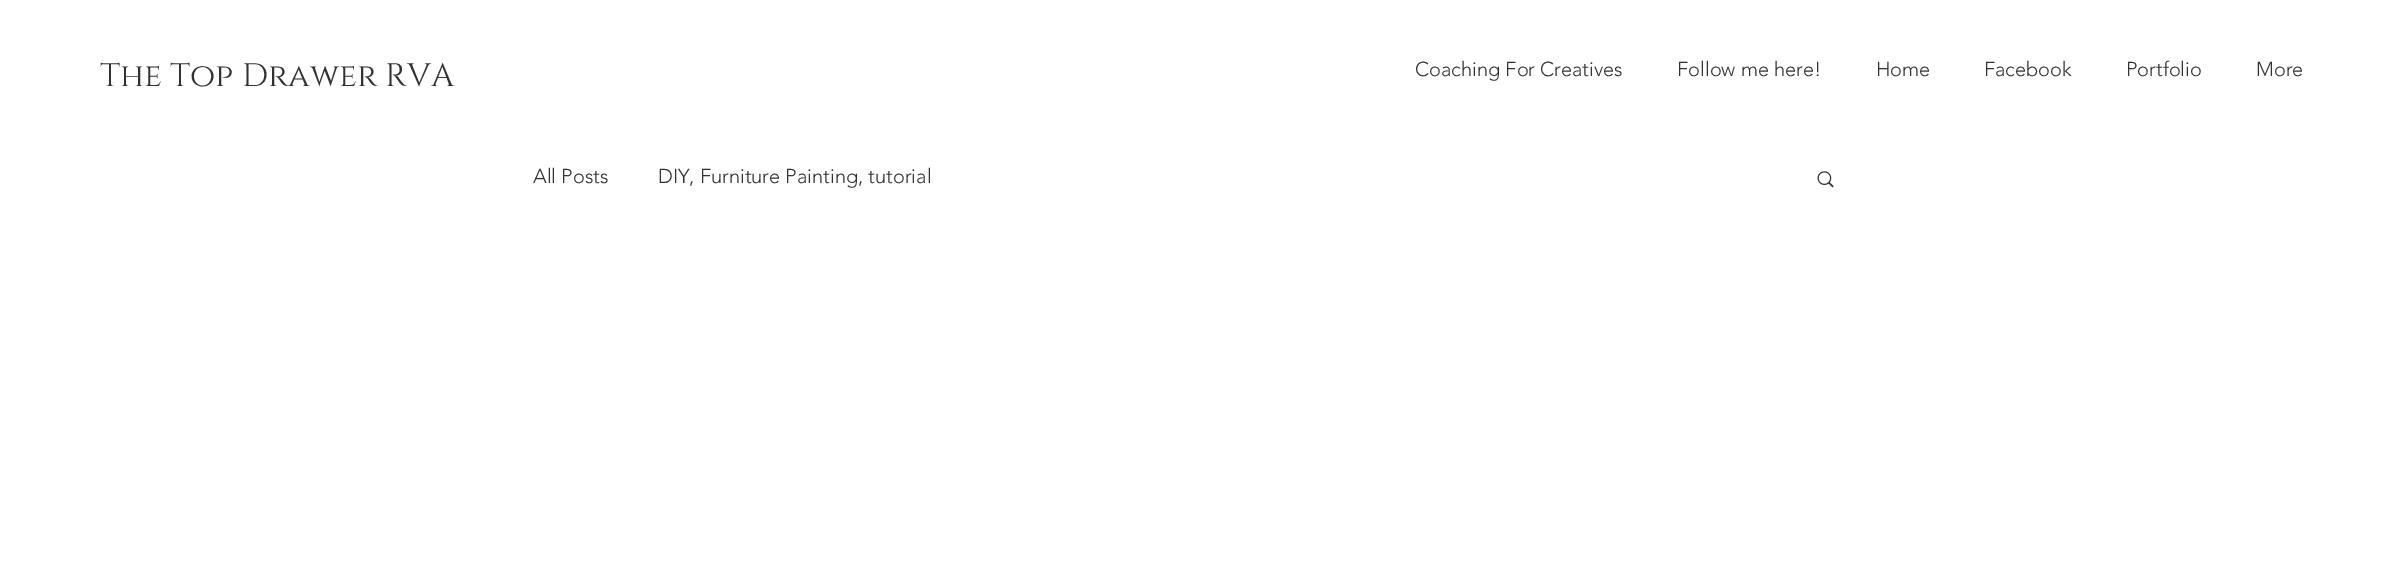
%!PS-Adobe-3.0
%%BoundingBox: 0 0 2390 568
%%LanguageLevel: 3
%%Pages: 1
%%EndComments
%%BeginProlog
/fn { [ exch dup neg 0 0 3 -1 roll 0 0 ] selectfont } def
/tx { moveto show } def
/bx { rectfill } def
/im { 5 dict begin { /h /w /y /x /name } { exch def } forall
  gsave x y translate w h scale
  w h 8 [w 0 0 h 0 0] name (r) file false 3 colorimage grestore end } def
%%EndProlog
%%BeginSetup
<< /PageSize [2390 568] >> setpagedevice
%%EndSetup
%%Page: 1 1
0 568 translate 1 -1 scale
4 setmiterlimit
1 setgray
0 0 2390 568 bx
/Cinzel-Regular 32.5 fn
0.188 0.192 0.192 setrgbcolor
(The Top Drawer RVA) 100 86 tx
/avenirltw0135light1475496-Light 20 fn
(Coaching For Creatives) 1415 76 tx
(Follow me here!) 1677 76 tx
(Home) 1876 76 tx
(Facebook) 1984 76 tx
(Portfolio) 2126 76 tx
(More) 2256 76 tx
(All Posts) 533 183 tx
(DIY, Furniture Painting, tutorial) 658 183 tx
(image0.raw) 1817 171 17 17 im
showpage
%%EOF
